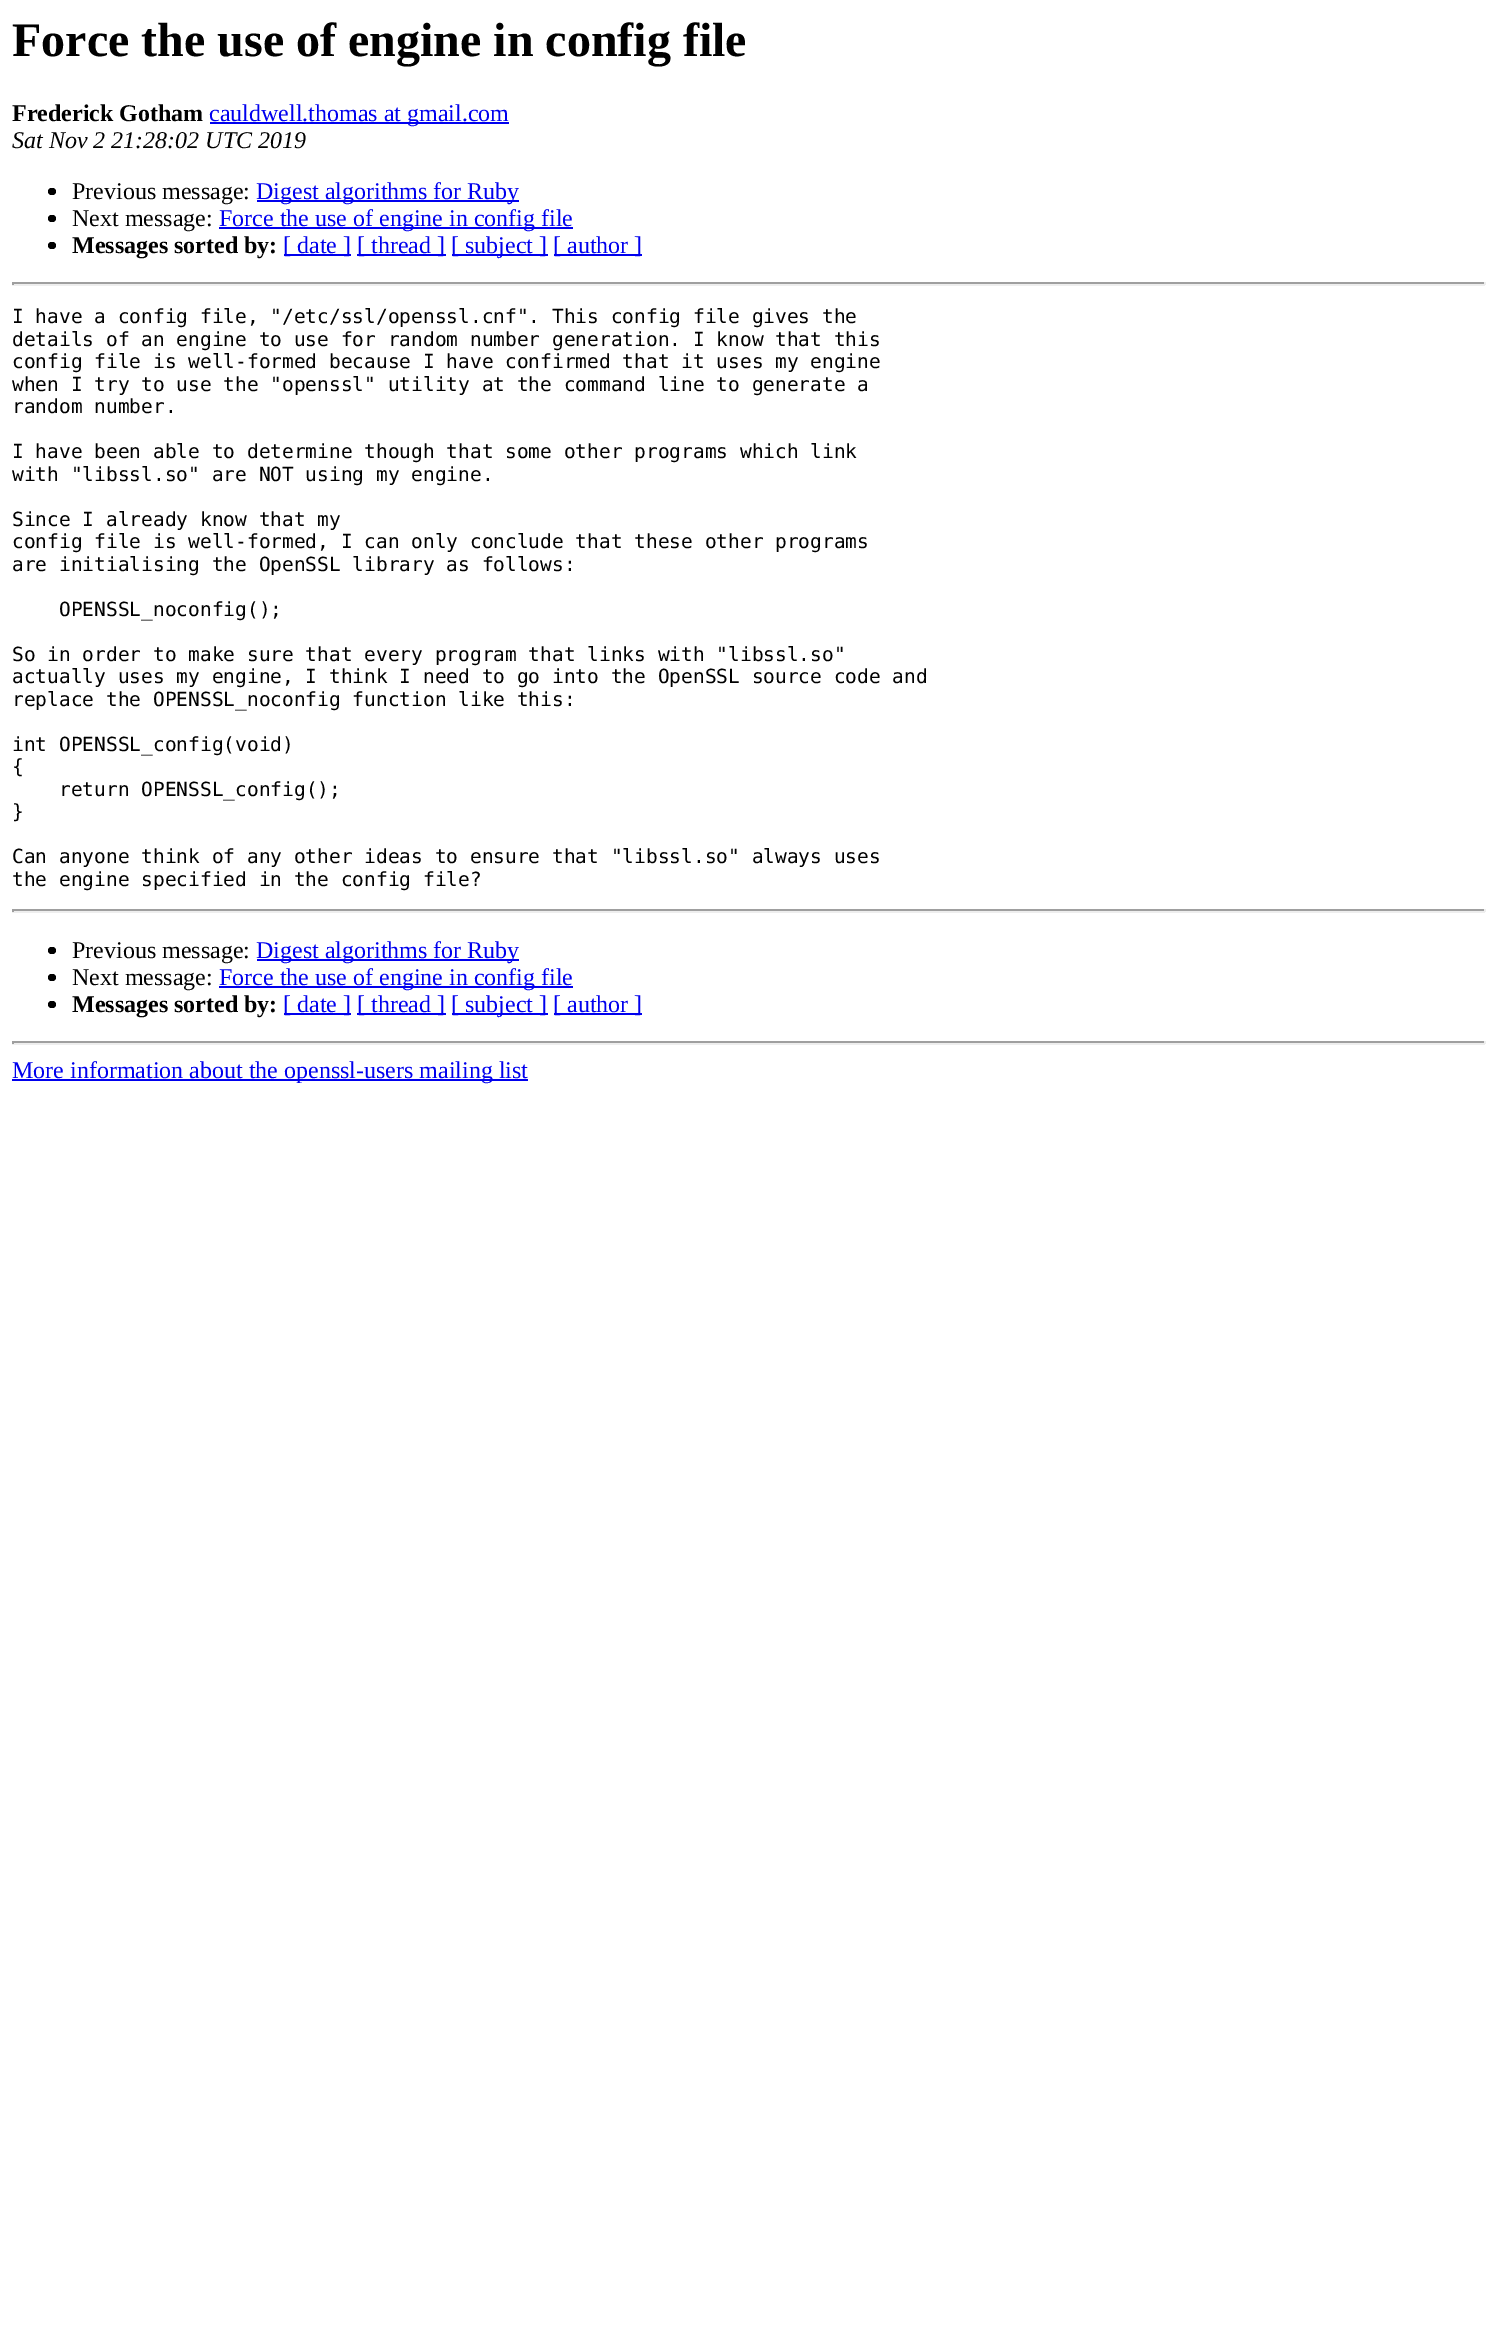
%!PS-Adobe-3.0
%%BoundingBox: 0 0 1496 2342
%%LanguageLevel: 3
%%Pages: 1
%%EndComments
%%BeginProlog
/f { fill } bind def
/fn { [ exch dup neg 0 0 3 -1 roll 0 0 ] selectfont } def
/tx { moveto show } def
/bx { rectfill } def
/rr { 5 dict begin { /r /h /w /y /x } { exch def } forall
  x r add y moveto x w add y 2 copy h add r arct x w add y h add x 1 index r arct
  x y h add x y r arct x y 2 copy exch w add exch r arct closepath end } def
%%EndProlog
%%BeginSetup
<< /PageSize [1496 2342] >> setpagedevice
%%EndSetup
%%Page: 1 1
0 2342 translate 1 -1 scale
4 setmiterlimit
1 setgray
0 0 1496 2342 bx
/LiberationSerif-Bold 48 fn
0 setgray
(Force the use of engine in config file) 12 56 tx
/LiberationSerif-Bold 24 fn
(Frederick Gotham) 12 121 tx
0 0 0.933 setrgbcolor
210 122 299 2 bx
/LiberationSerif-Regular 24 fn
(cauldwell.thomas at gmail.com) 209 121 tx
/LiberationSerif-Italic 24 fn
0 setgray
(Sat Nov 2 21:28:02 UTC 2019) 12 148 tx
48 188 8 7 3.5 rr f
/LiberationSerif-Regular 24 fn
(Previous message:) 72 199 tx
0 0 0.933 setrgbcolor
257 200 262 2 bx
(Digest algorithms for Ruby) 256 199 tx
0 setgray
48 215 8 7 3.5 rr f
(Next message:) 72 226 tx
0 0 0.933 setrgbcolor
219 227 354 2 bx
(Force the use of engine in config file) 219 226 tx
0 setgray
48 242 8 7 3.5 rr f
/LiberationSerif-Bold 24 fn
(Messages sorted by:) 72 253 tx
0 0 0.933 setrgbcolor
284 254 67 2 bx
/LiberationSerif-Regular 24 fn
([ date ]) 283 253 tx
357 254 89 2 bx
([ thread ]) 357 253 tx
452 254 96 2 bx
([ subject ]) 451 253 tx
554 254 88 2 bx
([ author ]) 553 253 tx
0.624 setgray
12 282 1473 2 bx
0.933 setgray
1484 282 2 3 bx
12 284 1473 2 bx
0.624 setgray
12 282 2 3 bx
/DejaVuSansMono-Regular 19.5 fn
0 setgray
(I have a config file, "/etc/ssl/openssl.cnf". This config file gives the) 12 323 tx
(details of an engine to use for random number generation. I know that this) 12 346 tx
(config file is well-formed because I have confirmed that it uses my engine) 12 368 tx
(when I try to use the "openssl" utility at the command line to generate a) 12 391 tx
(random number.) 12 413 tx
(I have been able to determine though that some other programs which link) 12 458 tx
(with "libssl.so" are NOT using my engine.) 12 481 tx
(Since I already know that my) 12 526 tx
(config file is well-formed, I can only conclude that these other programs) 12 548 tx
(are initialising the OpenSSL library as follows:) 12 571 tx
(OPENSSL_noconfig\(\);) 59 616 tx
(So in order to make sure that every program that links with "libssl.so") 12 661 tx
(actually uses my engine, I think I need to go into the OpenSSL source code and) 12 683 tx
(replace the OPENSSL_noconfig function like this:) 12 706 tx
(int OPENSSL_config\(void\)) 12 751 tx
({) 12 773 tx
(return OPENSSL_config\(\);) 59 796 tx
(}) 12 818 tx
(Can anyone think of any other ideas to ensure that "libssl.so" always uses) 12 863 tx
(the engine specified in the config file?) 12 886 tx
0.624 setgray
12 909 1473 2 bx
0.933 setgray
1484 909 2 3 bx
12 911 1473 2 bx
0.624 setgray
12 909 2 3 bx
0 setgray
48 947 8 7 3.5 rr f
/LiberationSerif-Regular 24 fn
(Previous message:) 72 958 tx
0 0 0.933 setrgbcolor
257 959 262 2 bx
(Digest algorithms for Ruby) 256 958 tx
0 setgray
48 974 8 7 3.5 rr f
(Next message:) 72 985 tx
0 0 0.933 setrgbcolor
219 986 354 2 bx
(Force the use of engine in config file) 219 985 tx
0 setgray
48 1001 8 7 3.5 rr f
/LiberationSerif-Bold 24 fn
(Messages sorted by:) 72 1012 tx
0 0 0.933 setrgbcolor
284 1013 67 2 bx
/LiberationSerif-Regular 24 fn
([ date ]) 283 1012 tx
357 1013 89 2 bx
([ thread ]) 357 1012 tx
452 1013 96 2 bx
([ subject ]) 451 1012 tx
554 1013 88 2 bx
([ author ]) 553 1012 tx
0.624 setgray
12 1041 1473 2 bx
0.933 setgray
1484 1041 2 3 bx
12 1043 1473 2 bx
0.624 setgray
12 1041 2 3 bx
0 0 0.933 setrgbcolor
12 1079 516 2 bx
(More information about the openssl-users mailing list) 12 1078 tx
showpage
%%EOF
